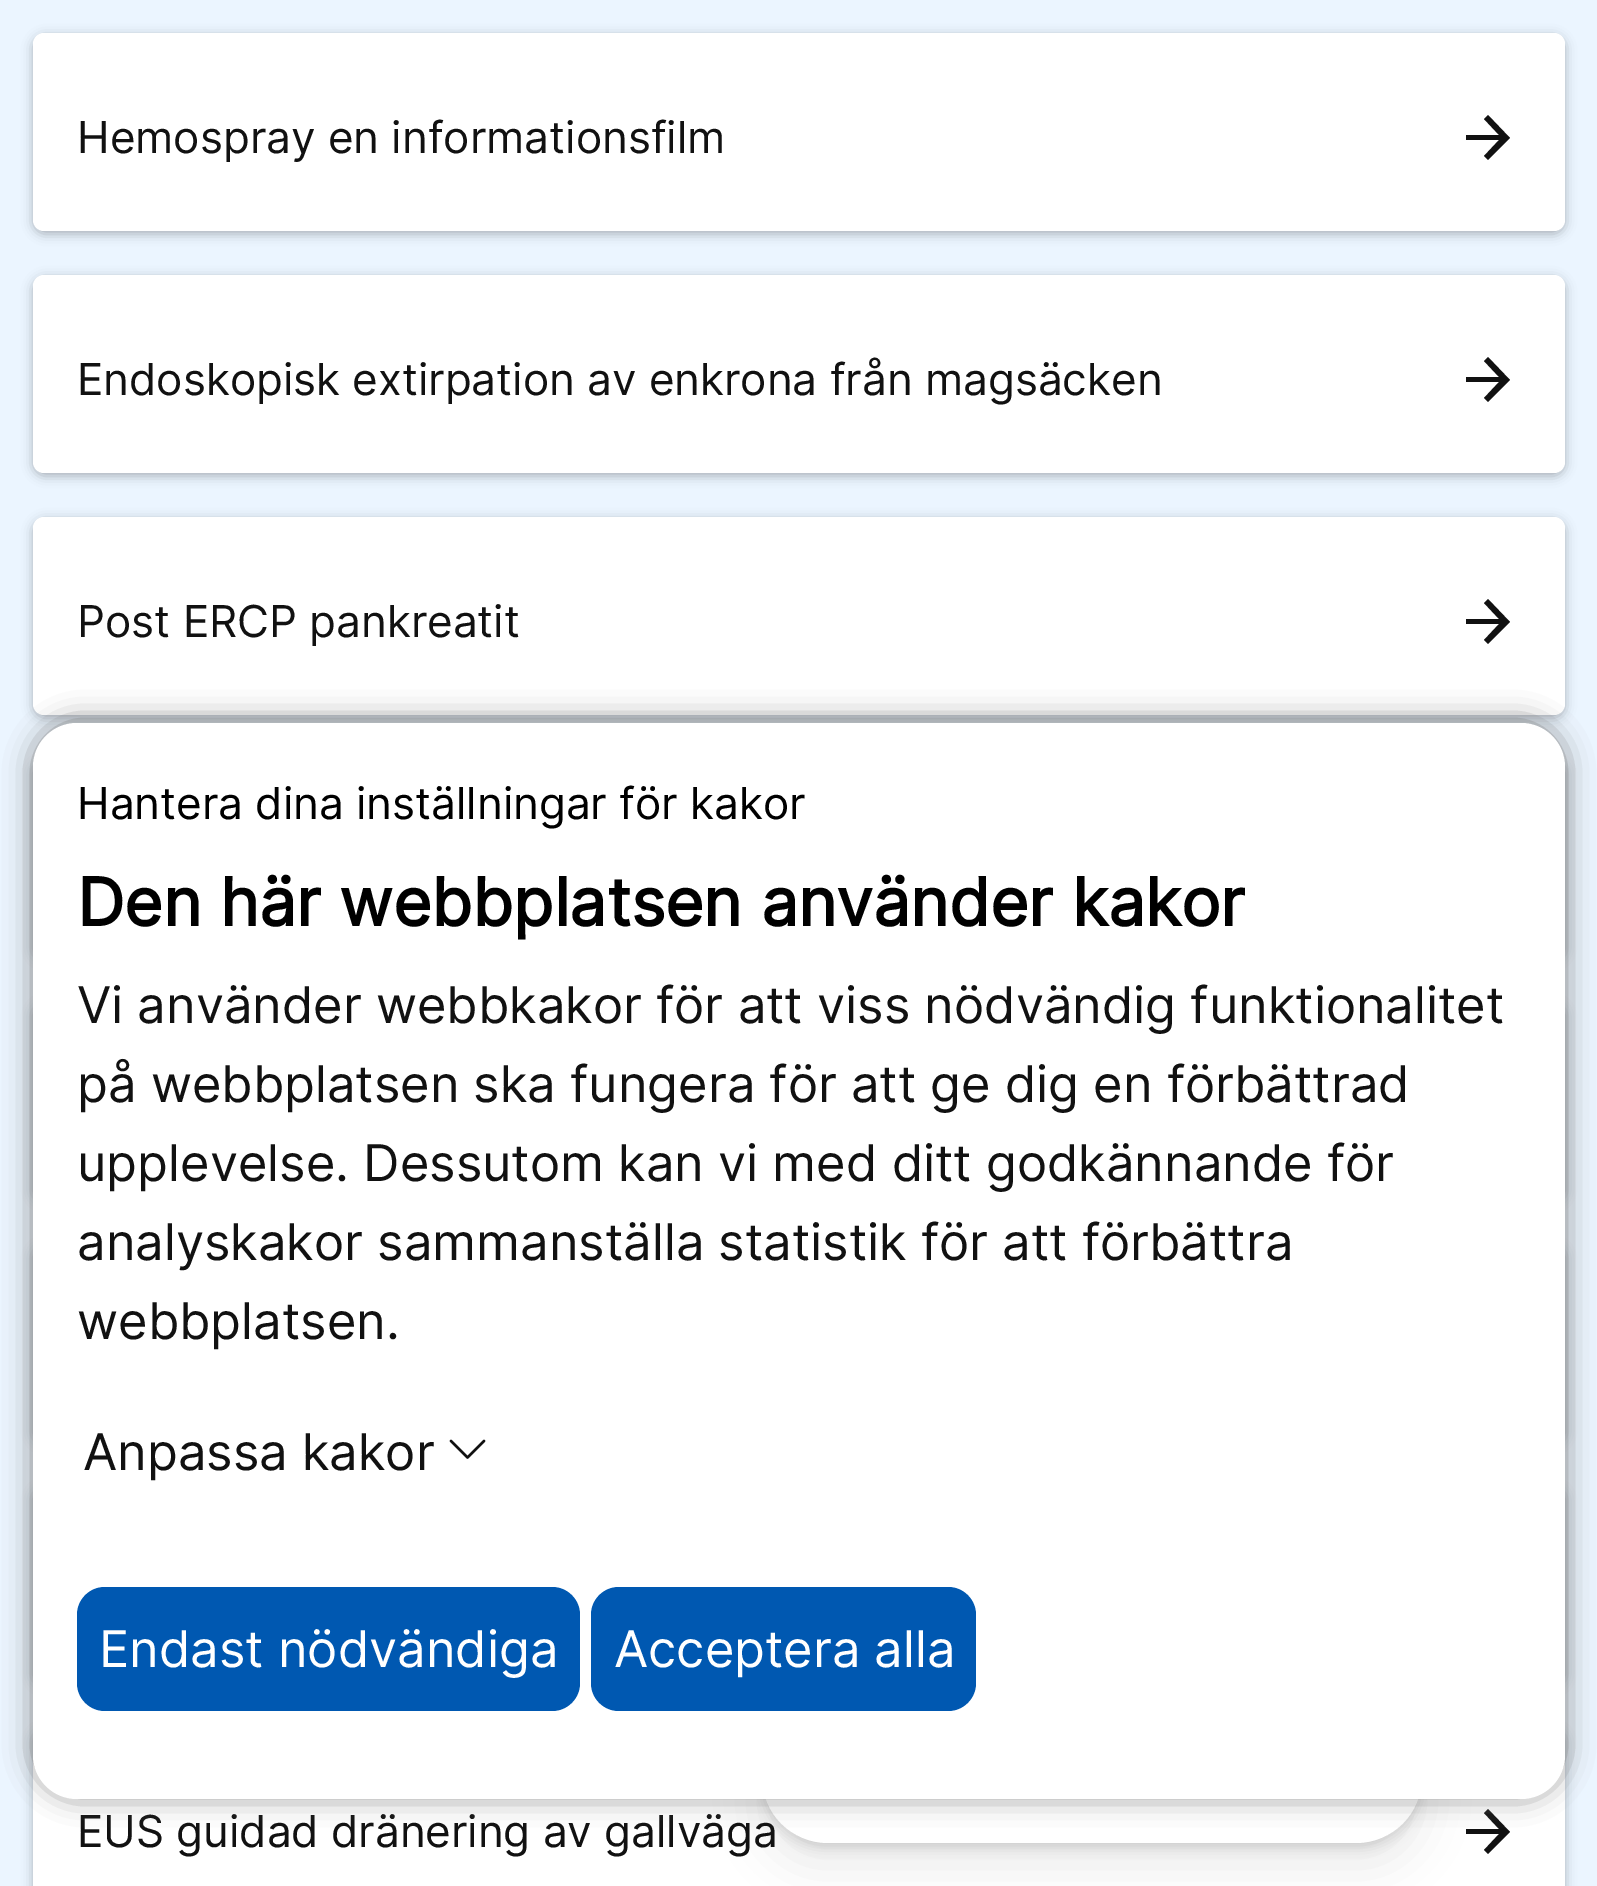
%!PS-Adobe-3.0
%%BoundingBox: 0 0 1597 1886
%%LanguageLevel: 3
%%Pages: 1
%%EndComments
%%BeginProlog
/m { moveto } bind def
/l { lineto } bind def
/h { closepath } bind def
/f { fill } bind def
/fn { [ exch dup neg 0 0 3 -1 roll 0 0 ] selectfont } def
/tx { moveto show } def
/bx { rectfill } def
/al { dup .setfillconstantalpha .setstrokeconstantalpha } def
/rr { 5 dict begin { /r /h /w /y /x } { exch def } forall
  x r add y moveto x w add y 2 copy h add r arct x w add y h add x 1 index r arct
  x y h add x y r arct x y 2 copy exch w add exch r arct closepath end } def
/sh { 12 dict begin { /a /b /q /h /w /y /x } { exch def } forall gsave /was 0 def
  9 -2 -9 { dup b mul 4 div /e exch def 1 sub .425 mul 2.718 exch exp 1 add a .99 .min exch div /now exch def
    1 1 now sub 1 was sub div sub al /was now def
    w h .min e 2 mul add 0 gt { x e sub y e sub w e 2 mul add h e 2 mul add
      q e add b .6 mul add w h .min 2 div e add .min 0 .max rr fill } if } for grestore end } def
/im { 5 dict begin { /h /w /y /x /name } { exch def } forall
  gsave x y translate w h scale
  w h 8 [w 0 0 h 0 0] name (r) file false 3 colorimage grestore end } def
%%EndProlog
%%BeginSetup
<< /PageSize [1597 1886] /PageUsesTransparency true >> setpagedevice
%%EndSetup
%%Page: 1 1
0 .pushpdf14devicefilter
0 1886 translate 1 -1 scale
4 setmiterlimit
0.922 0.961 1 setrgbcolor
0 0 1597 1886 bx
0 setgray
36 39 1526 192 8 5.5 0.12 sh
33 36 1532 198 11 5.5 0.2 sh
1 setgray
33 33 1532 198 11 rr f
/Inter-Regular 44 fn
0.067 setgray
(Hemospray en informationsfilm) 77 153 tx
1488 115 m 1484 119 l 1499 135 l 1466 135 l 1466 140 l 1499 140 l 1484 156 l 1488 160 l 1510 138 l h f
0 setgray
36 281 1526 192 8 5.5 0.12 sh
33 278 1532 198 11 5.5 0.2 sh
1 setgray
33 275 1532 198 11 rr f
0.067 setgray
(Endoskopisk extirpation av enkrona från magsäcken) 77 395 tx
1488 357 m 1484 361 l 1499 377 l 1466 377 l 1466 382 l 1499 382 l 1484 398 l 1488 402 l 1510 380 l h f
0 setgray
36 523 1526 192 8 5.5 0.12 sh
33 520 1532 198 11 5.5 0.2 sh
1 setgray
33 517 1532 198 11 rr f
0.067 setgray
(Post ERCP pankreatit) 77 637 tx
1488 599 m 1484 603 l 1499 619 l 1466 619 l 1466 624 l 1499 624 l 1484 640 l 1488 644 l 1510 622 l h f
0 setgray
36 765 1526 192 8 5.5 0.12 sh
33 762 1532 198 11 5.5 0.2 sh
36 1007 1526 192 8 5.5 0.12 sh
33 1004 1532 198 11 5.5 0.2 sh
36 1249 1526 192 8 5.5 0.12 sh
33 1246 1532 198 11 5.5 0.2 sh
36 1491 1526 192 8 5.5 0.12 sh
33 1488 1532 198 11 5.5 0.2 sh
36 1733 1526 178 8 5.5 0.12 sh
33 1730 1532 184 11 5.5 0.2 sh
1 setgray
33 1755 1532 131 bx
0.067 setgray
(EUS guidad dränering av gallväga) 77 1847 tx
1488 1809 m 1484 1813 l 1499 1829 l 1466 1829 l 1466 1834 l 1499 1834 l 1484 1850 l 1488 1854 l 1510 1832 l h f
0 setgray
762 1733 660 132 66 22 0.08 sh
762 1716 660 132 66 5.5 0.12 sh
1 setgray
762 1711 660 132 66 rr f
0.502 setgray
33 721 1532 1075 44 14 1 sh
1 setgray
33 723 1532 1076 44 rr f
0 setgray
(Hantera dina inställningar för kakor) 77 819 tx
/Inter-Bold 66 fn
(Den här webbplatsen använder kakor) 77 926 tx
/Inter-Regular 50.6 fn
0.067 setgray
(Vi använder webbkakor för att viss nödvändig funktionalitet) 77 1023 tx
(på webbplatsen ska fungera för att ge dig en förbättrad) 77 1102 tx
(upplevelse. Dessutom kan vi med ditt godkännande för) 77 1181 tx
(analyskakor sammanställa statistik för att förbättra) 77 1260 tx
(webbplatsen.) 77 1339 tx
(Anpassa kakor) 83 1470 tx
(image0.raw) 449 1439 37 20 im
0 0.345 0.694 setrgbcolor
77 1587 503 124 28 rr f
/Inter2-Regular 50.6 fn
1 setgray
(Endast nödvändiga) 99 1667 tx
0 0.345 0.694 setrgbcolor
591 1587 385 124 28 rr f
1 setgray
(Acceptera alla) 614 1667 tx
.poppdf14devicefilter showpage
%%EOF
